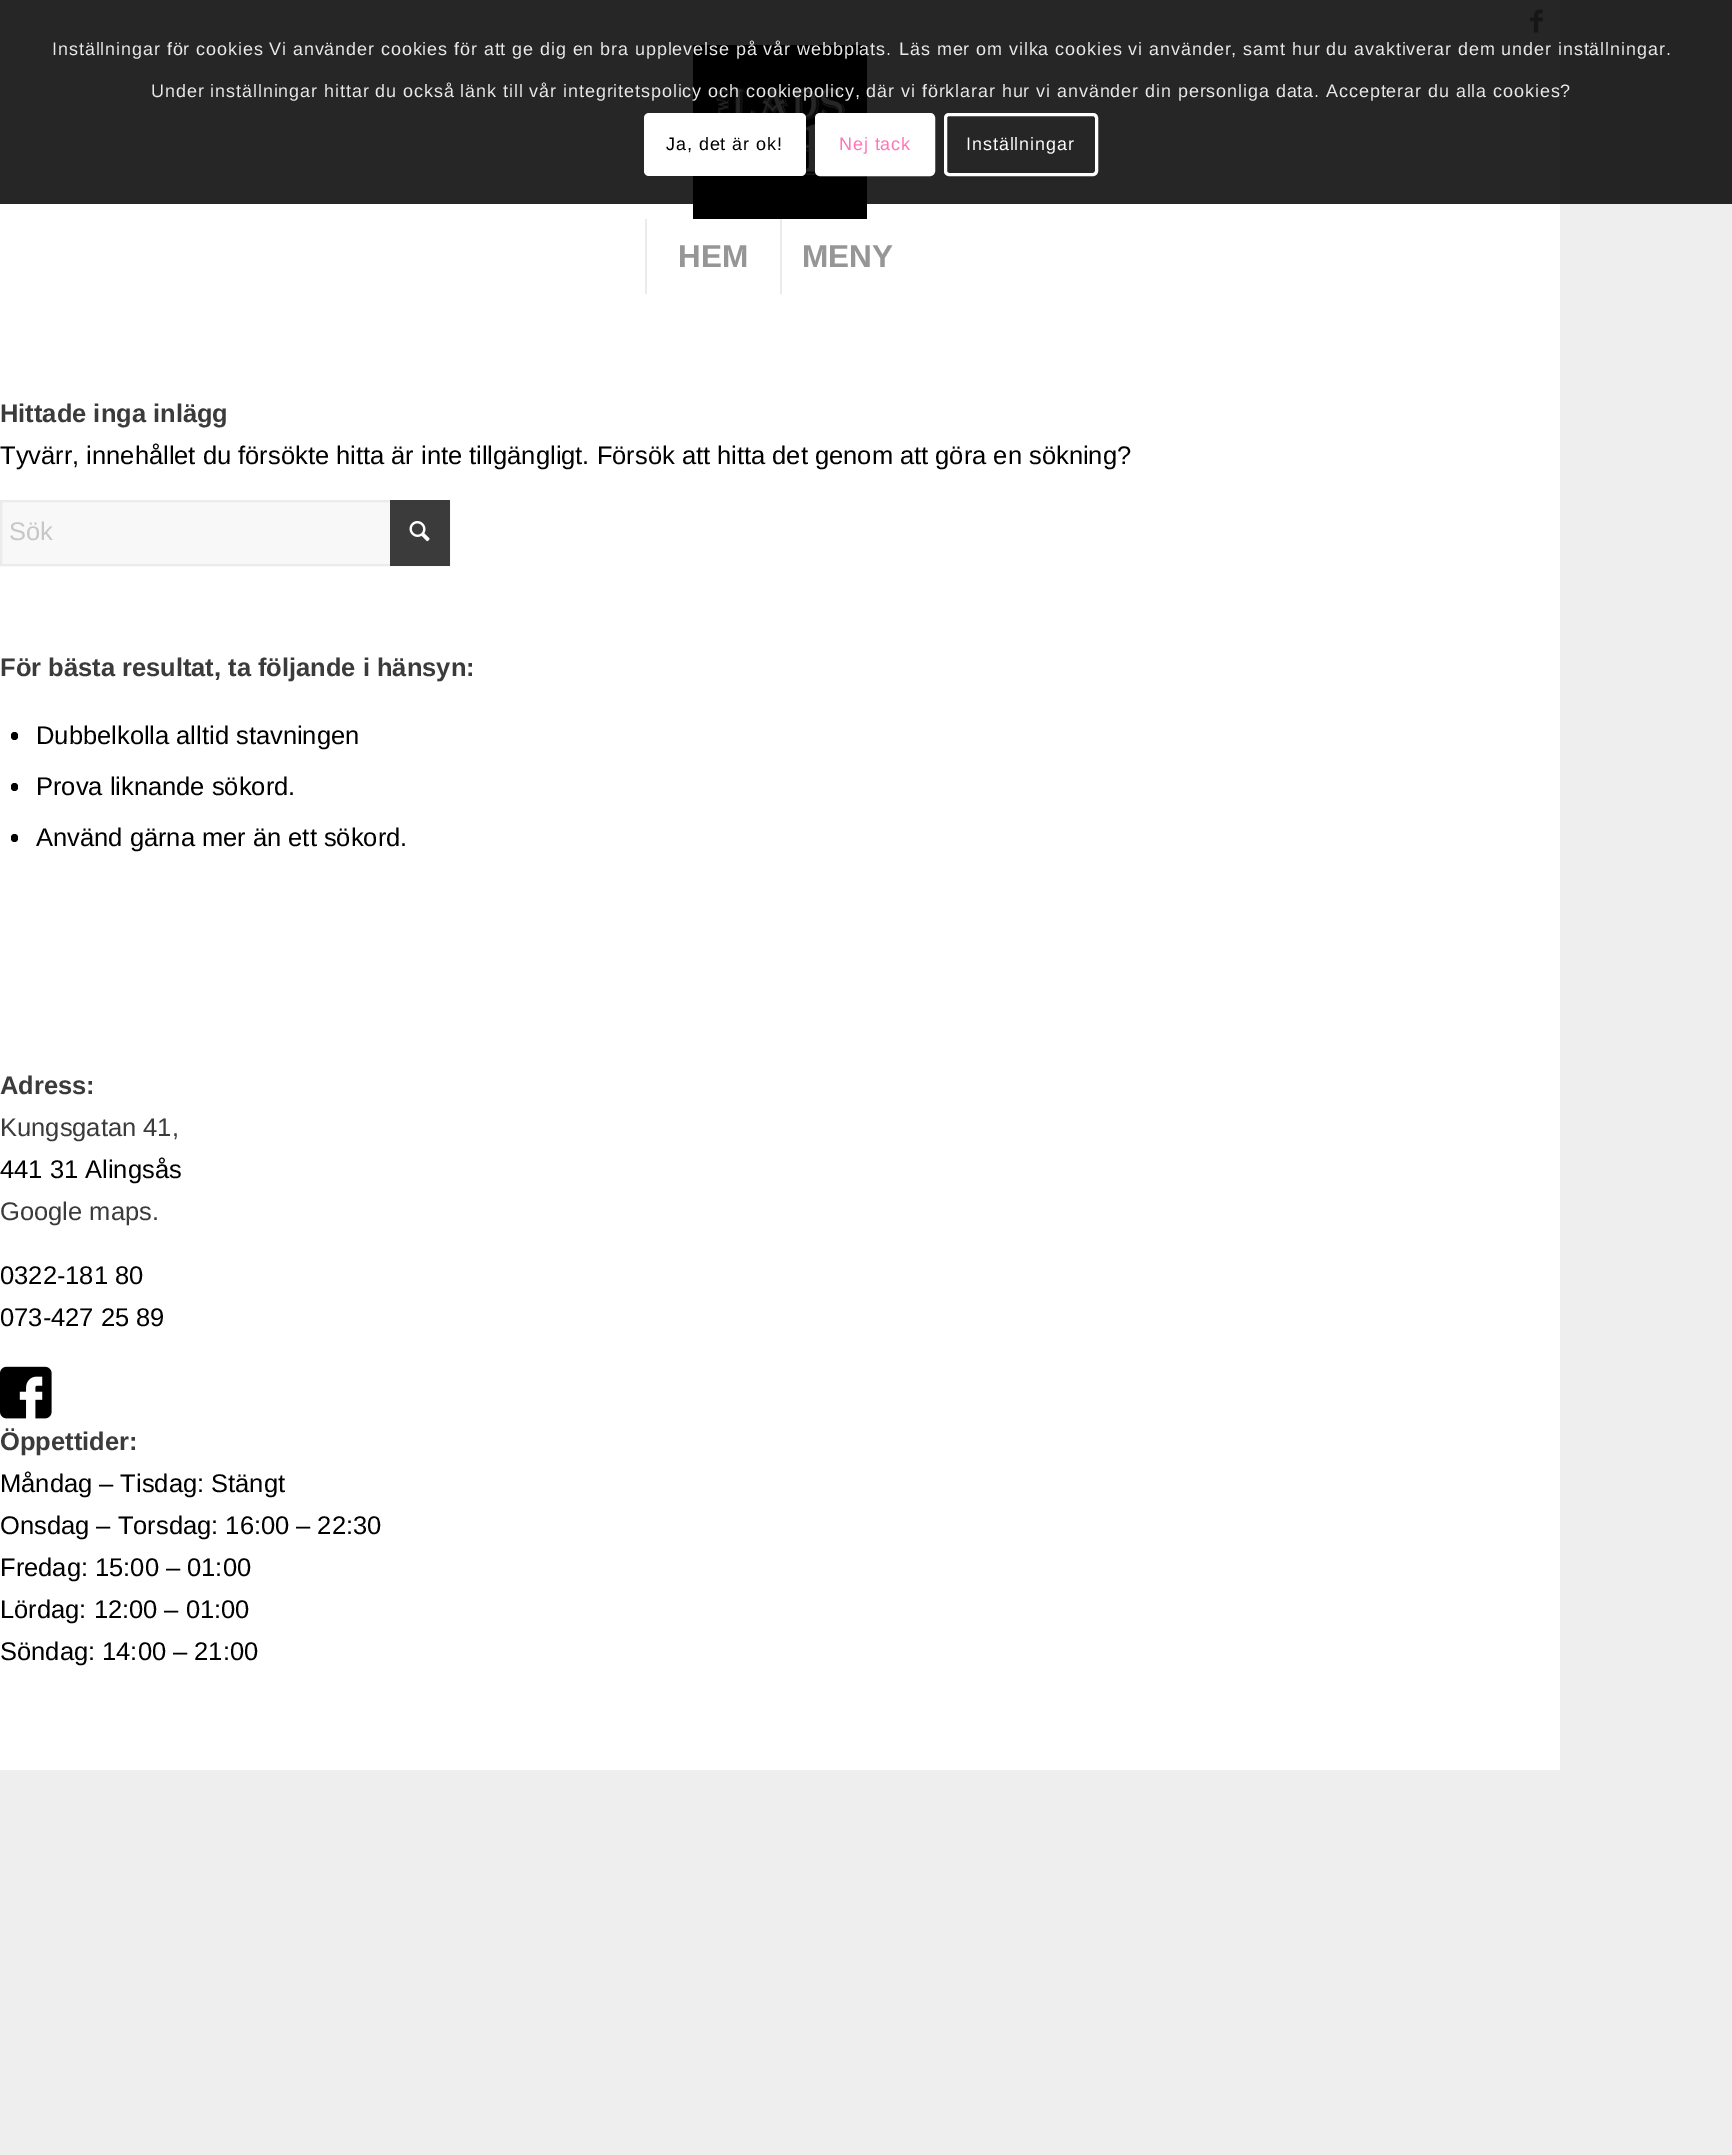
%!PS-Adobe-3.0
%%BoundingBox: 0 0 1732 2155
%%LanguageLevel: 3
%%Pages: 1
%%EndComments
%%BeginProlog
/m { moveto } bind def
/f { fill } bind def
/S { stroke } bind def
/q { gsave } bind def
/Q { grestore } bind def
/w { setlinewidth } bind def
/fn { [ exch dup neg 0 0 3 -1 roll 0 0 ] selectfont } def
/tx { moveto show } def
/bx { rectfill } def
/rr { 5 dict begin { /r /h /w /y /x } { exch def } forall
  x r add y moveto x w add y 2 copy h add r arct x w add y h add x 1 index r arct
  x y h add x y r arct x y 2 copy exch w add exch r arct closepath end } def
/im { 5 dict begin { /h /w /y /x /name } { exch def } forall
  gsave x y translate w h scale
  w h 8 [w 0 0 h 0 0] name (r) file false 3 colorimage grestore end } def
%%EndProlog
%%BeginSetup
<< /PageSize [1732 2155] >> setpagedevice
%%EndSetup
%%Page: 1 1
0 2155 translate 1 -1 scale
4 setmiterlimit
0.933 setgray
0 0 1732 2155 bx
0.141 setgray
1560 0 172 204 bx
0.149 setgray
0 0 1560 47 bx
0 47 1560 157 bx
/LiberationSans-Regular 18 fn
0.914 setgray
52 55 m 0.9 0 (Inställningar för cookies) ashow
1 setgray
0 204 1560 1566 bx
(image1.raw) 693 45 174 174 im
0.914 setgray
269 55 m 0.9 0 (Vi använder cookies för att ge dig en bra upplevelse på vår webbplats.) ashow
899 55 m 0.9 0 (Läs mer om vilka cookies vi använder, samt hur du avaktiverar dem under inställningar.) ashow
151 97 m 0.9 0 (Under inställningar hittar du också länk till vår integritetspolicy och cookiepolicy, där vi förklarar hur vi använder din personliga data. Accepterar du alla cookies?) ashow
1 setgray
644 113 162 63 5 rr f
0 setgray
666 150 m 0.9 0 (Ja, det är ok!) ashow
1 setgray
816.5 114.5 117 60 3.5 rr q f Q
3 w
S
1 0.459 0.71 setrgbcolor
839 150 m 0.9 0 (Nej tack) ashow
1 setgray
945.5 114.5 151 60 3.5 rr S
966 150 m 0.9 0 (Inställningar) ashow
(image0.raw) 1530 9 13 24 im
0.922 setgray
645 219 2 75 bx
/LiberationSans-Bold 31.5 fn
0.588 setgray
(HEM) 678 267 tx
0.922 setgray
780 219 2 75 bx
0.588 setgray
(MENY) 802 267 tx
/LiberationSans-Bold 25.5 fn
0.231 setgray
(Hittade inga inlägg) 0 422 tx
/LiberationSans-Regular 25.5 fn
0 setgray
(Tyvärr, innehållet du försökte hitta är inte tillgängligt. Försök att hitta det genom att göra en sökning?) 0 464 tx
0.973 setgray
2 502 388 62 bx
0.922 setgray
2 w
1 501 448 64 rectstroke
0.78 setgray
(Sök) 9 540 tx
0.231 setgray
390 500 60 66 bx
(image2.raw) 409 521 21 21 im
/LiberationSans-Bold 25.5 fn
(För bästa resultat, ta följande i hänsyn:) 0 676 tx
0 setgray
11 732 7 8 3.5 rr f
/LiberationSans-Regular 25.5 fn
(Dubbelkolla alltid stavningen) 36 744 tx
11 783 7 8 3.5 rr f
(Prova liknande sökord.) 36 795 tx
11 834 7 8 3.5 rr f
(Använd gärna mer än ett sökord.) 36 846 tx
/LiberationSans-Bold 25.5 fn
0.231 setgray
(Adress:) 0 1094 tx
/LiberationSans-Regular 25.5 fn
(Kungsgatan 41,) 0 1136 tx
0 setgray
(441 31 Alingsås) 0 1178 tx
0.231 setgray
(Google maps.) 0 1220 tx
0 setgray
(0322-181 80) 0 1284 tx
(073-427 25 89) 0 1326 tx
(image3.raw) 0 1366 52 53 im
/LiberationSans-Bold 25.5 fn
0.231 setgray
(Öppettider:) 0 1450 tx
/LiberationSans-Regular 25.5 fn
0 setgray
(Måndag – Tisdag: Stängt) 0 1492 tx
(Onsdag – Torsdag: 16:00 – 22:30) 0 1534 tx
(Fredag: 15:00 – 01:00) 0 1576 tx
(Lördag: 12:00 – 01:00) 0 1618 tx
(Söndag: 14:00 – 21:00) 0 1660 tx
showpage
%%EOF
